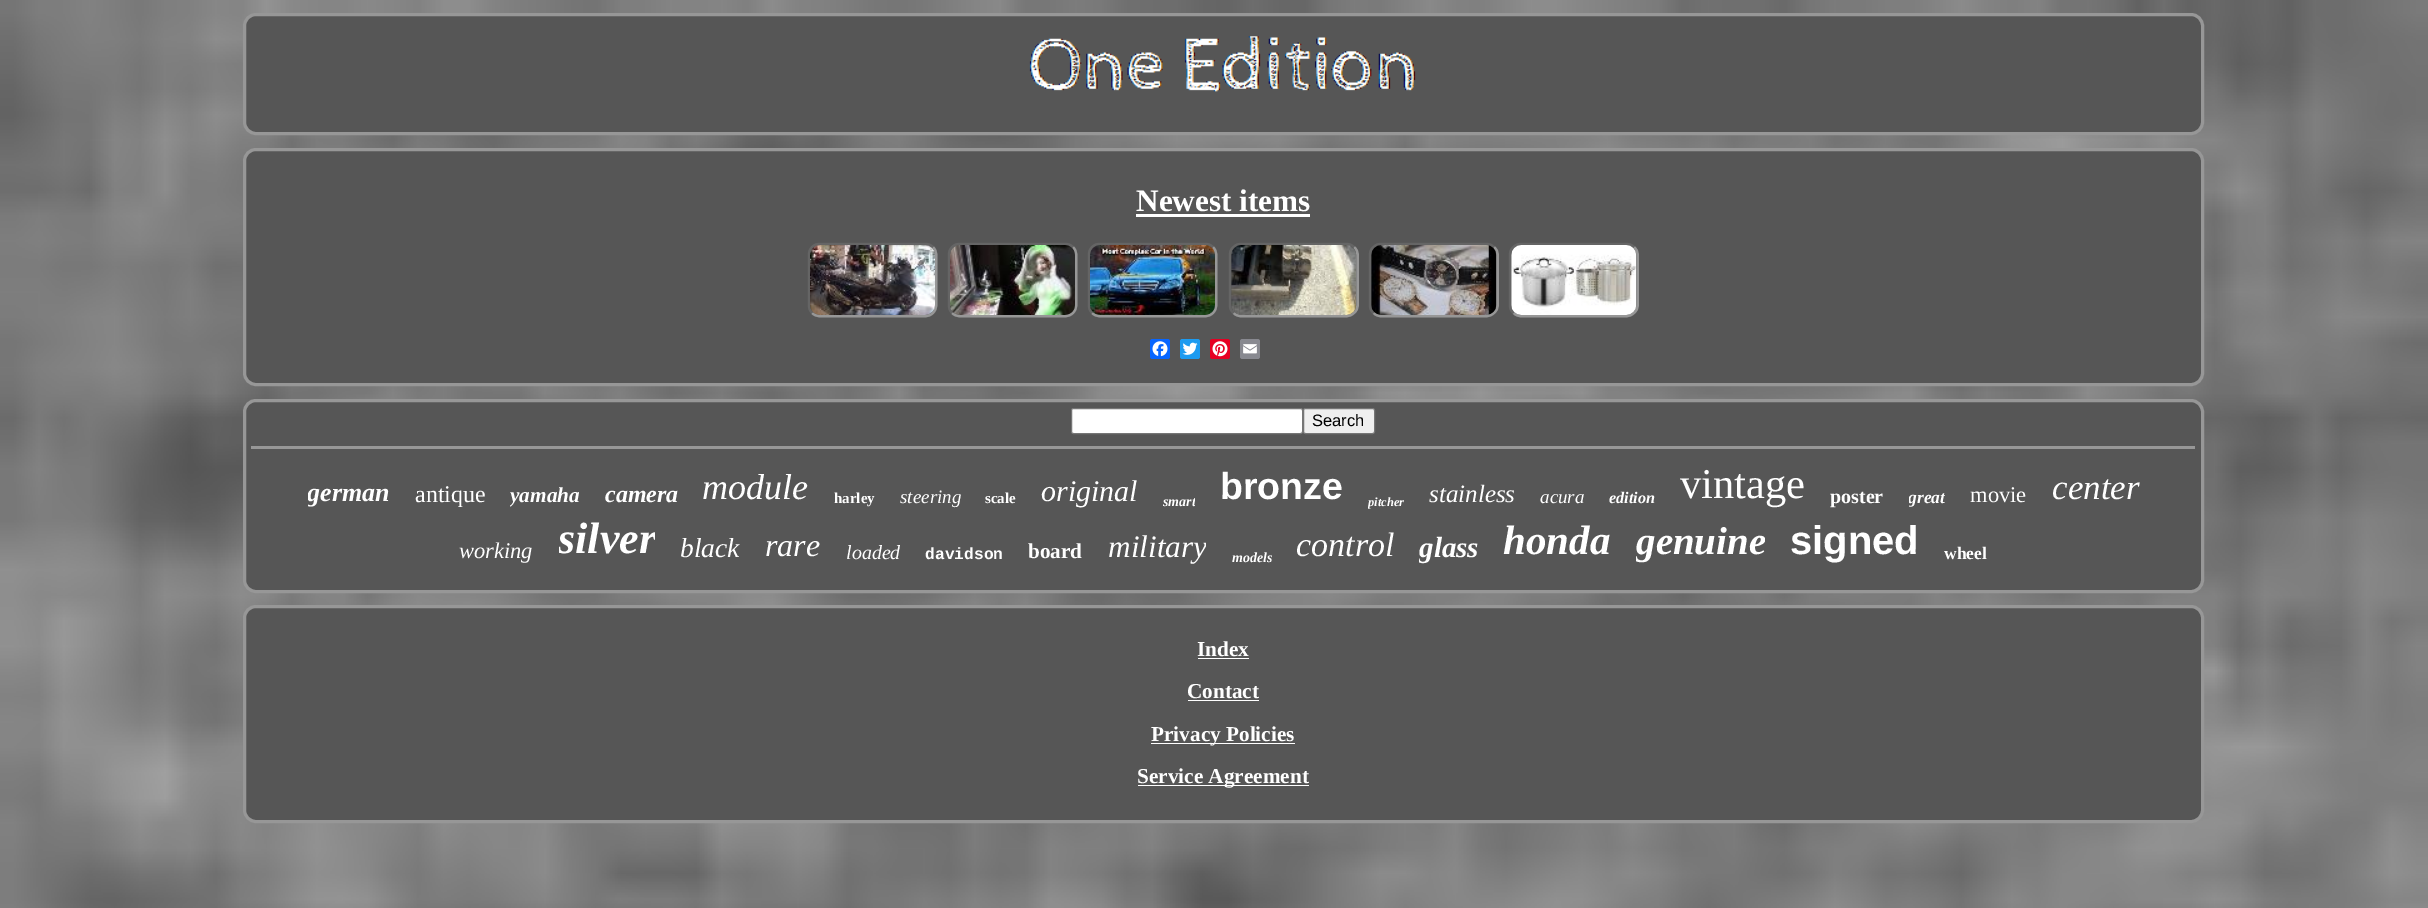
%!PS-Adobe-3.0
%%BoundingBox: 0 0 2428 908
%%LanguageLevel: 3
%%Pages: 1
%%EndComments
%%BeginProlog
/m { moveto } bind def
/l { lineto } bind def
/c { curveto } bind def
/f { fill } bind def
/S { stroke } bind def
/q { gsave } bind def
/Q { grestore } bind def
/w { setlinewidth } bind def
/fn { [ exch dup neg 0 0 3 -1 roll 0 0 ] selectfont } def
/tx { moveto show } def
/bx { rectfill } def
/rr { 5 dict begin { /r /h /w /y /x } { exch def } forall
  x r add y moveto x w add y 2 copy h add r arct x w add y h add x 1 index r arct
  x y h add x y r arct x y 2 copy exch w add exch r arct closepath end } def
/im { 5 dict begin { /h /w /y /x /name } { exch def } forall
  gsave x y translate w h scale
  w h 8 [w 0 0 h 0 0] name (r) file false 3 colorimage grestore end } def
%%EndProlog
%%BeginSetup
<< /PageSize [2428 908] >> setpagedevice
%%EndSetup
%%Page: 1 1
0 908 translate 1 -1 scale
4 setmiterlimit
1 setgray
0 0 2428 908 bx
(image0.raw) 0 0 2428 908 im
0.337 setgray
244.5 14.5 1958 119 11.5 rr q f Q
0.592 setgray
3 w
S
(image1.raw) 1029 36 387 56 im
0.337 setgray
244.5 149.5 1958 235 11.5 rr q f Q
0.592 setgray
S
/LiberationSerif-Bold 31.25 fn
1 setgray
(Newest items) 1136 211 tx
1136 214 174 3 bx
0.592 setgray
2.5 w
933 247 m 935 249 936 252 936 255 c 936 305 l 936 308 935 311 933 313 c 931 315 928 316 925 316 c 820 316 l 817 316 814 315 812 313 c S
0.396 setgray
812 313 m 810 311 809 308 809 305 c 809 255 l 809 252 810 249 812 247 c 814 245 817 244 820 244 c 925 244 l 928 244 931 245 933 247 c S
0.592 setgray
1073 247 m 1075 249 1076 252 1076 255 c 1076 305 l 1076 308 1075 311 1073 313 c 1071 315 1068 316 1065 316 c 960 316 l 957 316 954 315 952 313 c S
0.396 setgray
952 313 m 950 311 949 308 949 305 c 949 255 l 949 252 950 249 952 247 c 954 245 957 244 960 244 c 1065 244 l 1068 244 1071 245 1073 247 c S
0.592 setgray
1213 247 m 1215 249 1216 252 1216 255 c 1216 305 l 1216 308 1215 311 1213 313 c 1211 315 1208 316 1205 316 c 1100 316 l 1097 316 1094 315 1092 313 c S
0.396 setgray
1092 313 m 1090 311 1089 308 1089 305 c 1089 255 l 1089 252 1090 249 1092 247 c 1094 245 1097 244 1100 244 c 1205 244 l 1208 244 1211 245 1213 247 c S
0.592 setgray
1354 247 m 1356.5 249 1357.5 252 1357.5 255 c 1357.5 305 l 1357.5 308 1356.5 311 1354 313 c 1352 315 1349 316 1346 316 c 1241 316 l 1238.5 316 1235.5 315 1233.5 313 c S
0.396 setgray
1233.5 313 m 1231 311 1230 308 1230 305 c 1230 255 l 1230 252 1231 249 1233.5 247 c 1235.5 245 1238.5 244 1241 244 c 1346 244 l 1349 244 1352 245 1354 247 c S
0.592 setgray
1494 247 m 1496.5 249 1497.5 252 1497.5 255 c 1497.5 305 l 1497.5 308 1496.5 311 1494 313 c 1492 315 1489 316 1486 316 c 1381 316 l 1378.5 316 1375.5 315 1373.5 313 c S
0.396 setgray
1373.5 313 m 1371 311 1370 308 1370 305 c 1370 255 l 1370 252 1371 249 1373.5 247 c 1375.5 245 1378.5 244 1381 244 c 1486 244 l 1489 244 1492 245 1494 247 c S
0.592 setgray
1634 247 m 1636.5 249 1637.5 252 1637.5 255 c 1637.5 305 l 1637.5 308 1636.5 311 1634 313 c 1632 315 1629 316 1626 316 c 1521 316 l 1518.5 316 1515.5 315 1513.5 313 c S
0.396 setgray
1513.5 313 m 1511 311 1510 308 1510 305 c 1510 255 l 1510 252 1511 249 1513.5 247 c 1515.5 245 1518.5 244 1521 244 c 1626 244 l 1629 244 1632 245 1634 247 c S
(image2.raw) 810 245 125 70 im
(image3.raw) 950 245 125 70 im
(image4.raw) 1090 245 125 70 im
(image5.raw) 1231 245 125 70 im
(image6.raw) 1371 245 126 70 im
(image7.raw) 1511 245 126 70 im
0.031 0.4 1 setrgbcolor
1150 339 20 20 2.5 rr f
(image8.raw) 1152 341 16 16 im
0.114 0.608 0.941 setrgbcolor
1180 339 20 20 2.5 rr f
(image9.raw) 1182 342 16 13 im
0.902 0 0.137 setrgbcolor
1210 339 20 20 2.5 rr f
(image10.raw) 1212 341 16 16 im
0.533 0.537 0.565 setrgbcolor
1240 339 20 20 2.5 rr f
(image11.raw) 1243 344 14 10 im
0.337 setgray
244.5 400.5 1958 191 11.5 rr q f Q
0.592 setgray
3 w
S
1 setgray
1071.5 408.5 231 25 2 rr q f Q
0.463 setgray
1 w
S
0.937 setgray
1303.5 408.5 71 25 2 rr q f Q
0.463 setgray
S
/LiberationSans-Regular 16.5 fn
0 setgray
(Search) 1312 426 tx
0.592 setgray
251 446 1944 3 bx
q
308 478 82 31 rectclip
/LiberationSerif-BoldItalic 26 fn
1 setgray
(german) 307 501 tx
Q
/LiberationSerif-Regular 24 fn
1 setgray
(antique) 415 502 tx
q
510 484 70 25 rectclip
/LiberationSerif-BoldItalic 21.25 fn
(yamaha) 510 502 tx
Q
/LiberationSerif-BoldItalic 24 fn
(camera) 605 502 tx
/LiberationSerif-Italic 36 fn
(module) 702 499 tx
/LiberationSerif-Bold 15 fn
(harley) 834 503 tx
/LiberationSerif-Italic 19 fn
(steering) 900 503 tx
/LiberationSerif-Bold 15 fn
(scale) 985 503 tx
/LiberationSerif-Italic 30 fn
(original) 1041 501 tx
q
1163 494 32 15 rectclip
/LiberationSerif-BoldItalic 14 fn
(smart) 1163 506 tx
Q
/LiberationSans-Bold 37.5 fn
(bronze) 1220 499 tx
q
1368 495 36 14 rectclip
/LiberationSerif-BoldItalic 12.5 fn
(pitcher) 1368 506 tx
Q
/LiberationSerif-Italic 25 fn
(stainless) 1429 502 tx
/LiberationSerif-Italic 19 fn
(acura) 1540 503 tx
/LiberationSerif-BoldItalic 16.25 fn
(edition) 1609 503 tx
/LiberationSerif-Regular 42.5 fn
(vintage) 1680 498 tx
/LiberationSerif-Bold 20 fn
(poster) 1830 503 tx
q
1909 489 36 20 rectclip
/LiberationSerif-BoldItalic 17.5 fn
(great) 1908 503 tx
Q
/LiberationSerif-Regular 22.5 fn
(movie) 1970 502 tx
/LiberationSerif-Italic 35 fn
(center) 2052 499 tx
/LiberationSerif-Italic 22.5 fn
(working) 459 558 tx
q
559 515 96 50 rectclip
/LiberationSerif-BoldItalic 44 fn
(silver) 558 553 tx
Q
/LiberationSerif-Italic 27.5 fn
(black) 680 557 tx
/LiberationSerif-Italic 32 fn
(rare) 765 556 tx
/LiberationSerif-Italic 20 fn
(loaded) 846 559 tx
/LiberationMono-Bold 16.25 fn
(davidson) 925 559 tx
/LiberationSerif-Bold 21.25 fn
(board) 1028 558 tx
q
1108 530 98 35 rectclip
/LiberationSerif-Italic 31.25 fn
(military) 1108 557 tx
Q
/LiberationSerif-BoldItalic 14 fn
(models) 1232 562 tx
/LiberationSerif-Italic 34 fn
(control) 1296 556 tx
q
1419 533 59 32 rectclip
/LiberationSerif-BoldItalic 29 fn
(glass) 1419 557 tx
Q
/LiberationSerif-BoldItalic 41 fn
(honda) 1503 554 tx
q
1636 520 129 45 rectclip
/LiberationSerif-BoldItalic 39 fn
(genuine) 1636 554 tx
Q
/LiberationSans-Bold 40 fn
(signed) 1790 554 tx
/LiberationSerif-Bold 17.5 fn
(wheel) 1944 559 tx
0.337 setgray
244.5 606.5 1958 215 11.5 rr q f Q
0.592 setgray
3 w
S
/LiberationSerif-Bold 21.25 fn
1 setgray
(Index) 1197 656 tx
1198 658 51 1 bx
(Contact) 1187 698 tx
1188 700 71 1 bx
1151 743 144 1 bx
(Privacy Policies) 1151 741 tx
1138 785 171 1 bx
(Service Agreement) 1137 783 tx
showpage
%%EOF
